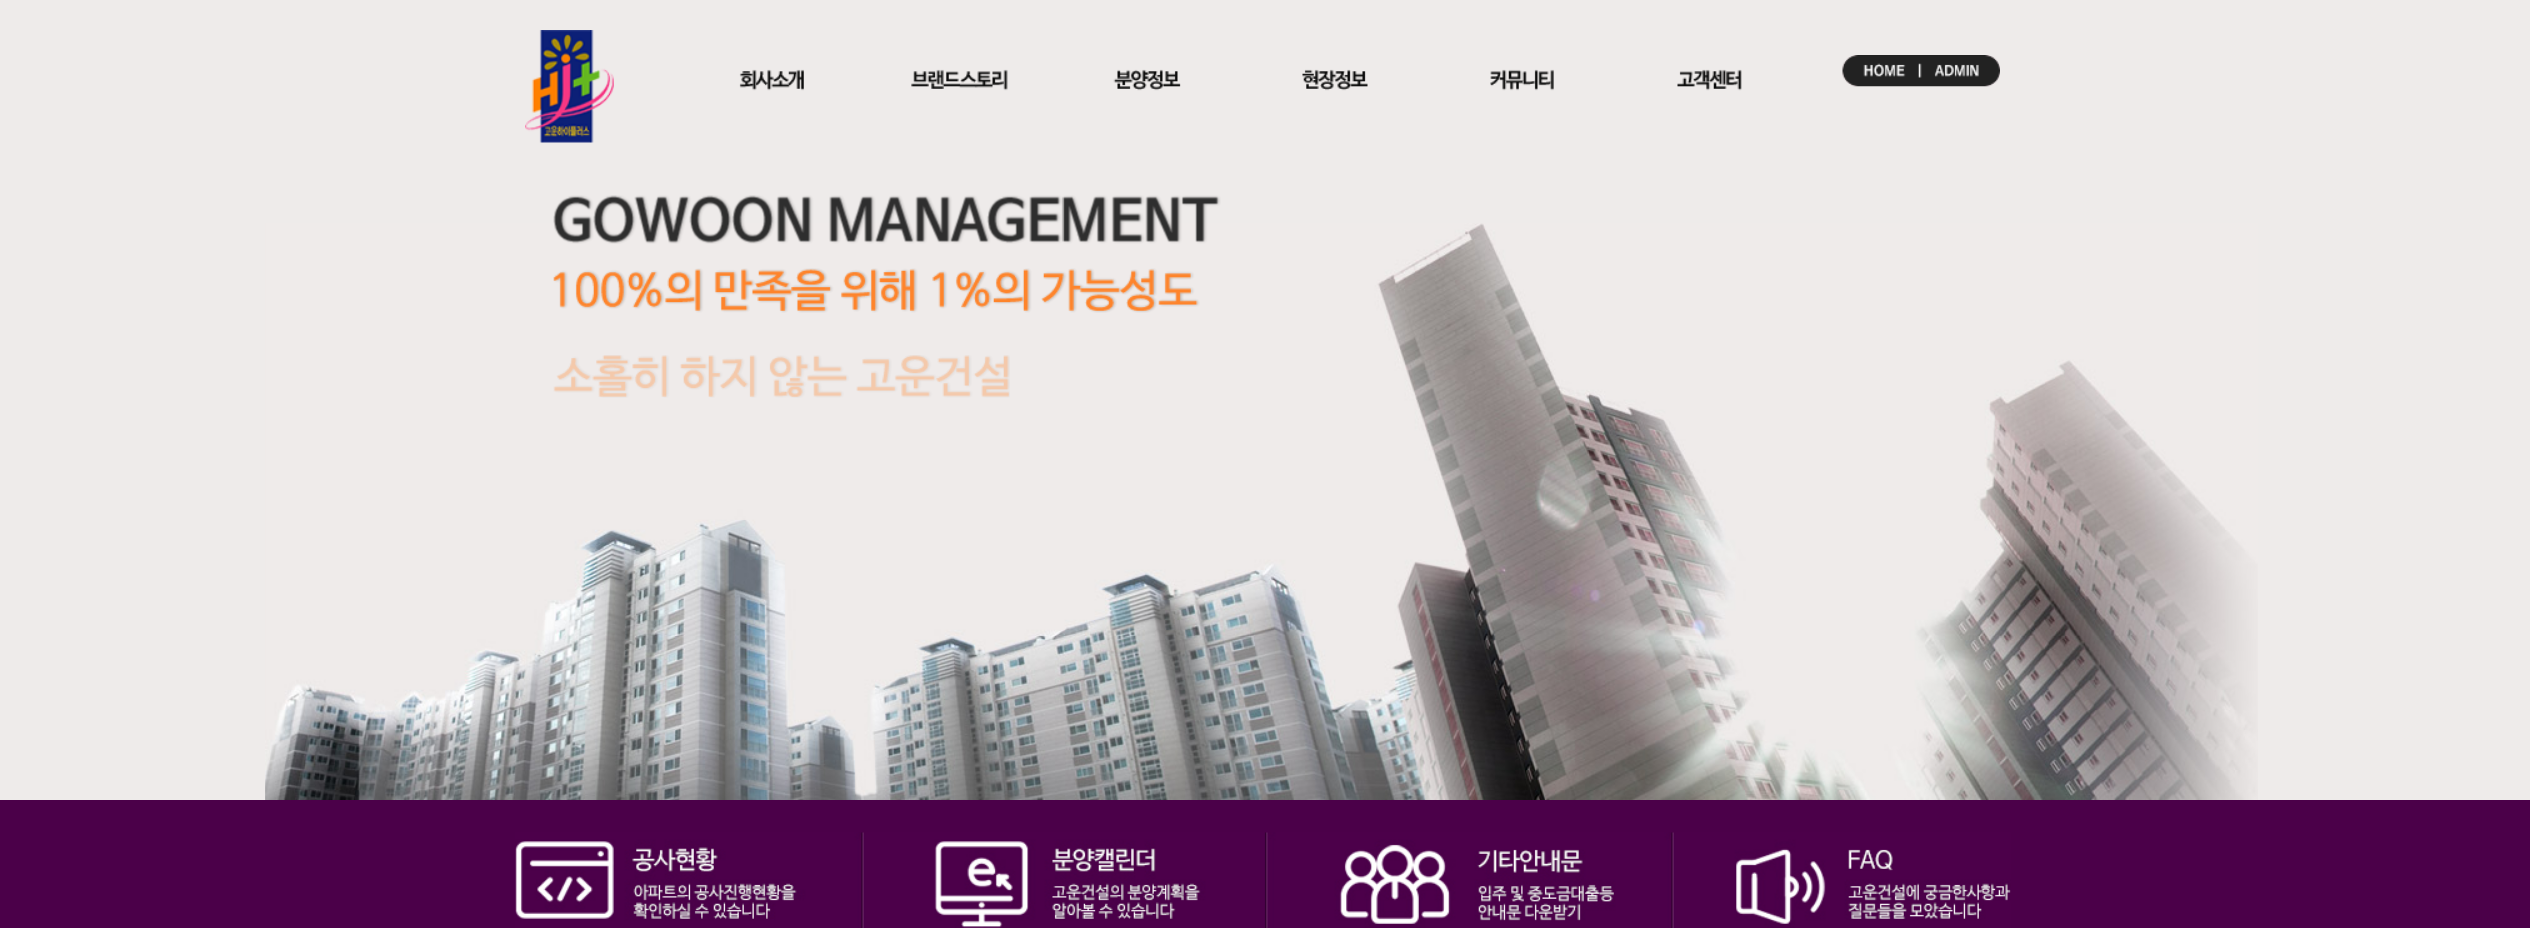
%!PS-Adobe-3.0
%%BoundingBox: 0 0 2530 928
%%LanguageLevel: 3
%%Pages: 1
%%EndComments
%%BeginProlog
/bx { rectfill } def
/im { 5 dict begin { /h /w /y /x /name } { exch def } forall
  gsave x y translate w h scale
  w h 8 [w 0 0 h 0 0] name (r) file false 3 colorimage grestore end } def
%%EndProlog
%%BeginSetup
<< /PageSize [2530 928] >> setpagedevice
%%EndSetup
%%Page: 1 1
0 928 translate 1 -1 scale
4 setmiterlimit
0.933 0.922 0.918 setrgbcolor
0 0 2530 928 bx
(image0.raw) 525 30 89 113 im
(image1.raw) 739 69 65 22 im
(image2.raw) 911 69 97 22 im
(image3.raw) 1113 69 68 22 im
(image4.raw) 1302 69 66 22 im
(image5.raw) 1490 69 64 22 im
(image6.raw) 1677 69 65 22 im
(image7.raw) 1842 55 158 32 im
(image8.raw) 265 223 1993 577 im
(image9.raw) 553 195 668 49 im
(image10.raw) 553 268 647 45 im
(image11.raw) 553 355 457 43 im
0.294 0 0.286 setrgbcolor
0 800 2530 128 bx
(image12.raw) 515 832 1496 96 im
showpage
%%EOF
